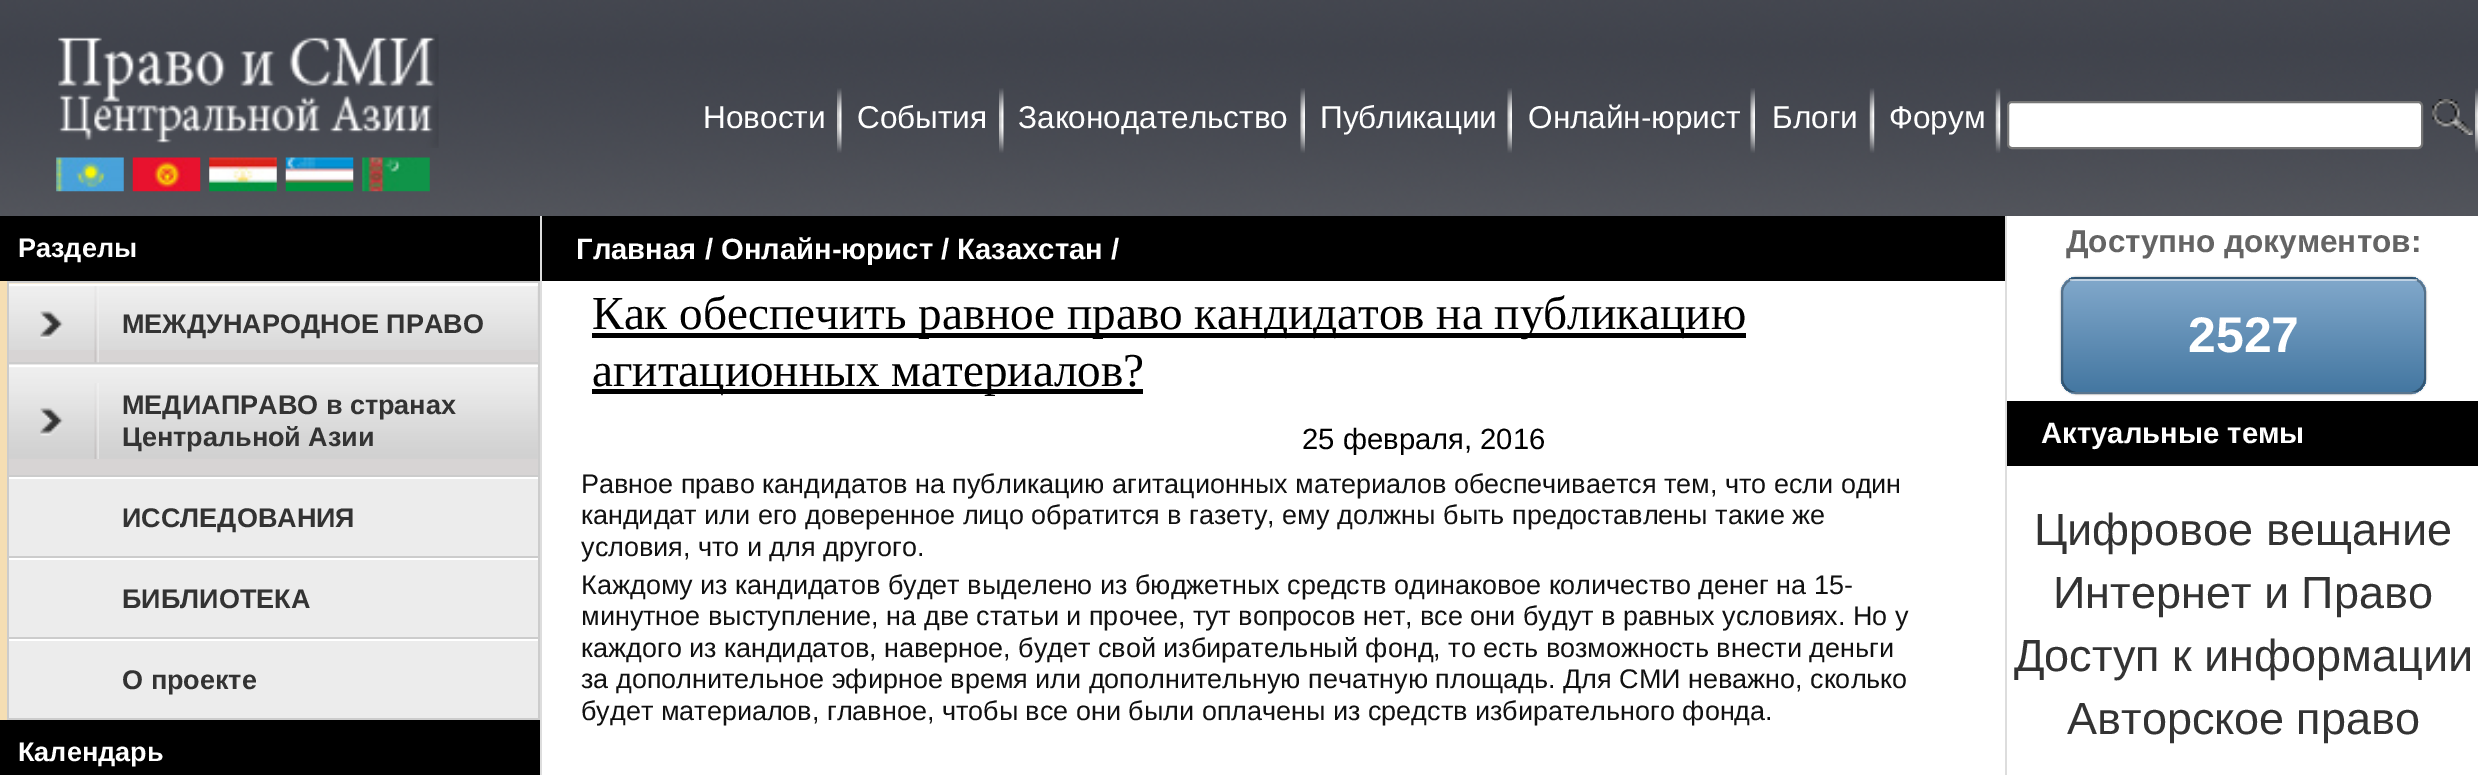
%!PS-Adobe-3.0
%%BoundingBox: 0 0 2478 775
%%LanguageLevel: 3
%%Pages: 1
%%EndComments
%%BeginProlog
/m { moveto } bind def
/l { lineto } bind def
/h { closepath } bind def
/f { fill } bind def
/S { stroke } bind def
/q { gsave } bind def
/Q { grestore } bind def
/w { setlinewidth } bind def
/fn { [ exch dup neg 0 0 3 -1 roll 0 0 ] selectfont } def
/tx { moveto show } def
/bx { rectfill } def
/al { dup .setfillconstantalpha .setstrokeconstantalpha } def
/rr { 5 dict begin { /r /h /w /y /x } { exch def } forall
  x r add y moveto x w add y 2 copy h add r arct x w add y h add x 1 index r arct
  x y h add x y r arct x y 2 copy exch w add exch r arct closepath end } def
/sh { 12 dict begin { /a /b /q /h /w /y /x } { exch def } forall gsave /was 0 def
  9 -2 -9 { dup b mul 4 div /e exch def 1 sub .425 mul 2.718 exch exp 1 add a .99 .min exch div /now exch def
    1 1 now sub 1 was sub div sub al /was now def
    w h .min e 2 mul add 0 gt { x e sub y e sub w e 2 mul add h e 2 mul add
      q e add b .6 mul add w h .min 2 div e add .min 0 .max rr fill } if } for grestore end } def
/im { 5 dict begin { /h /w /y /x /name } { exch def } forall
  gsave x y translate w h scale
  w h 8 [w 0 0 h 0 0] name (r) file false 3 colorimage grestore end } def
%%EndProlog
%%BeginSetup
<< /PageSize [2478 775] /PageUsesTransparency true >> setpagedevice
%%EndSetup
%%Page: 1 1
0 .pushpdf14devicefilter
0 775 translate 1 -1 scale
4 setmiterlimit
1 setgray
0 0 2478 775 bx
(image0.raw) 0 0 2478 216 im
(image1.raw) 58 34 381 114 im
(image2.raw) 837 88 5 65 im
/LiberationSans-Regular 31.5 fn
(Новости) 703 128 tx
(image3.raw) 999 88 5 65 im
(События) 857 128 tx
(image4.raw) 1300 88 5 65 im
(Законодательство) 1018 128 tx
(image5.raw) 1507 88 5 65 im
(Публикации) 1320 128 tx
(image4.raw) 1750 88 5 65 im
(Онлайн-юрист) 1528 128 tx
(image6.raw) 1869 88 6 65 im
(Блоги) 1772 128 tx
(image7.raw) 1995 88 6 65 im
(Форум) 1889 128 tx
(image8.raw) 2475 88 3 65 im
2008 102 414 46 4 rr q f Q
0.463 setgray
2 w
S
(image9.raw) 2432 99 41 36 im
(image10.raw) 56 157 68 35 im
(image11.raw) 132 157 69 35 im
(image12.raw) 209 157 68 35 im
(image13.raw) 285 157 69 35 im
(image14.raw) 362 157 68 35 im
(image15.raw) 0 281 412 439 im
0 setgray
0 216 540 65 bx
/LiberationSans-Bold 27 fn
1 setgray
(Разделы) 18 257 tx
0.8 setgray
7 281 533 2 bx
538 281 2 439 bx
7 281 2 439 bx
0.843 0.831 0.831 setrgbcolor
9 286 529 79 bx
(image16.raw) 9 283 529 67 im
1 setgray
9 284 529 2 bx
0.8 setgray
9 362 529 2 bx
(image17.raw) 40 286 59 77 im
0.2 setgray
(МЕЖДУНАРОДНОЕ ПРАВО) 122 333 tx
0.843 0.831 0.831 setrgbcolor
9 367 529 108 bx
(image18.raw) 9 364 529 95 im
1 setgray
9 365 529 2 bx
0.8 setgray
9 475 529 2 bx
(image19.raw) 40 383 59 76 im
0.2 setgray
(МЕДИАПРАВО в странах) 122 414 tx
(Центральной Азии) 122 446 tx
0.925 setgray
9 479 529 77 bx
1 setgray
9 477 403 2 bx
0.8 setgray
9 556 529 2 bx
0.2 setgray
(ИССЛЕДОВАНИЯ) 122 527 tx
0.925 setgray
9 560 529 77 bx
1 setgray
9 558 403 2 bx
0.8 setgray
9 637 529 2 bx
0.2 setgray
(БИБЛИОТЕКА) 122 608 tx
0.925 setgray
9 641 529 77 bx
1 setgray
9 639 403 2 bx
0.8 setgray
9 718 529 2 bx
0.2 setgray
(О проекте) 122 689 tx
0 setgray
0 720 540 55 bx
1 setgray
(Календарь) 18 761 tx
/LiberationSans-Bold 31.5 fn
0.392 setgray
(Доcтупно документов:) 2066 252 tx
0 setgray
2061 277 365 117 16 1 0.4 sh
q
2061 277 365 117 16 rr clip newpath
q 2061 277 m 2426 277 l 2426 279 l 2061 279 l h clip newpath
<< /ShadingType 2 /ColorSpace /DeviceRGB /Coords [2063 167 2063 279] /Extend [true true] /Function << /FunctionType 2 /Domain [0 1] /C0 [0.506 0.659 0.796] /C1 [0.267 0.467 0.631] /N 1 >> >> shfill Q
q 2061 279 m 2426 279 l 2426 392 l 2061 392 l h clip newpath
<< /ShadingType 2 /ColorSpace /DeviceRGB /Coords [2063 279 2063 392] /Extend [true true] /Function << /FunctionType 2 /Domain [0 1] /C0 [0.506 0.659 0.796] /C1 [0.267 0.467 0.631] /N 1 >> >> shfill Q
q 2061 392 m 2426 392 l 2426 394 l 2061 394 l h clip newpath
<< /ShadingType 2 /ColorSpace /DeviceRGB /Coords [2063 392 2063 504] /Extend [true true] /Function << /FunctionType 2 /Domain [0 1] /C0 [0.506 0.659 0.796] /C1 [0.267 0.467 0.631] /N 1 >> >> shfill Q
Q
0.3 al
2062 278 363 115 15 rr S
0.5 al
1 setgray
2070 279 347 2 bx
/LiberationSans-Bold 50 fn
1 al
(2527) 2188 352 tx
0 setgray
2007 401 471 65 bx
/LiberationSans-Bold 29.25 fn
1 setgray
(Актуальные темы) 2041 443 tx
/LiberationSans-Regular 45 fn
0.2 setgray
(Цифровое вещание) 2034 545 tx
(Интернет и Право) 2053 608 tx
(Доступ к информации) 2014 671 tx
(Авторское право) 2067 734 tx
0.867 setgray
2005 216 2 559 bx
540 216 2 559 bx
0 setgray
542 216 1463 65 bx
/LiberationSans-Bold 29.25 fn
1 setgray
(Главная / Онлайн-юрист / Казахстан /) 576 259 tx
0 setgray
592 333 1154 5 bx
/LiberationSerif-Regular 47.25 fn
(Как обеспечить равное право кандидатов на публикацию) 592 329 tx
592 389 551 5 bx
(агитационных материалов?) 592 386 tx
/LiberationSans-Regular 29.25 fn
(25 февраля, 2016) 1302 449 tx
/LiberationSans-Regular 27 fn
0.067 setgray
(Равное право кандидатов на публикацию агитационных материалов обеспечивается тем, что если один) 581 493 tx
(кандидат или его доверенное лицо обратится в газету, ему должны быть предоставлены такие же) 581 524 tx
(условия, что и для другого.) 581 556 tx
(Каждому из кандидатов будет выделено из бюджетных средств одинаковое количество денег на 15-) 581 594 tx
(минутное выступление, на две статьи и прочее, тут вопросов нет, все они будут в равных условиях. Но у) 581 625 tx
(каждого из кандидатов, наверное, будет свой избирательный фонд, то есть возможность внести деньги) 581 657 tx
(за дополнительное эфирное время или дополнительную печатную площадь. Для СМИ неважно, сколько) 581 688 tx
(будет материалов, главное, чтобы все они были оплачены из средств избирательного фонда.) 581 720 tx
.poppdf14devicefilter showpage
%%EOF
